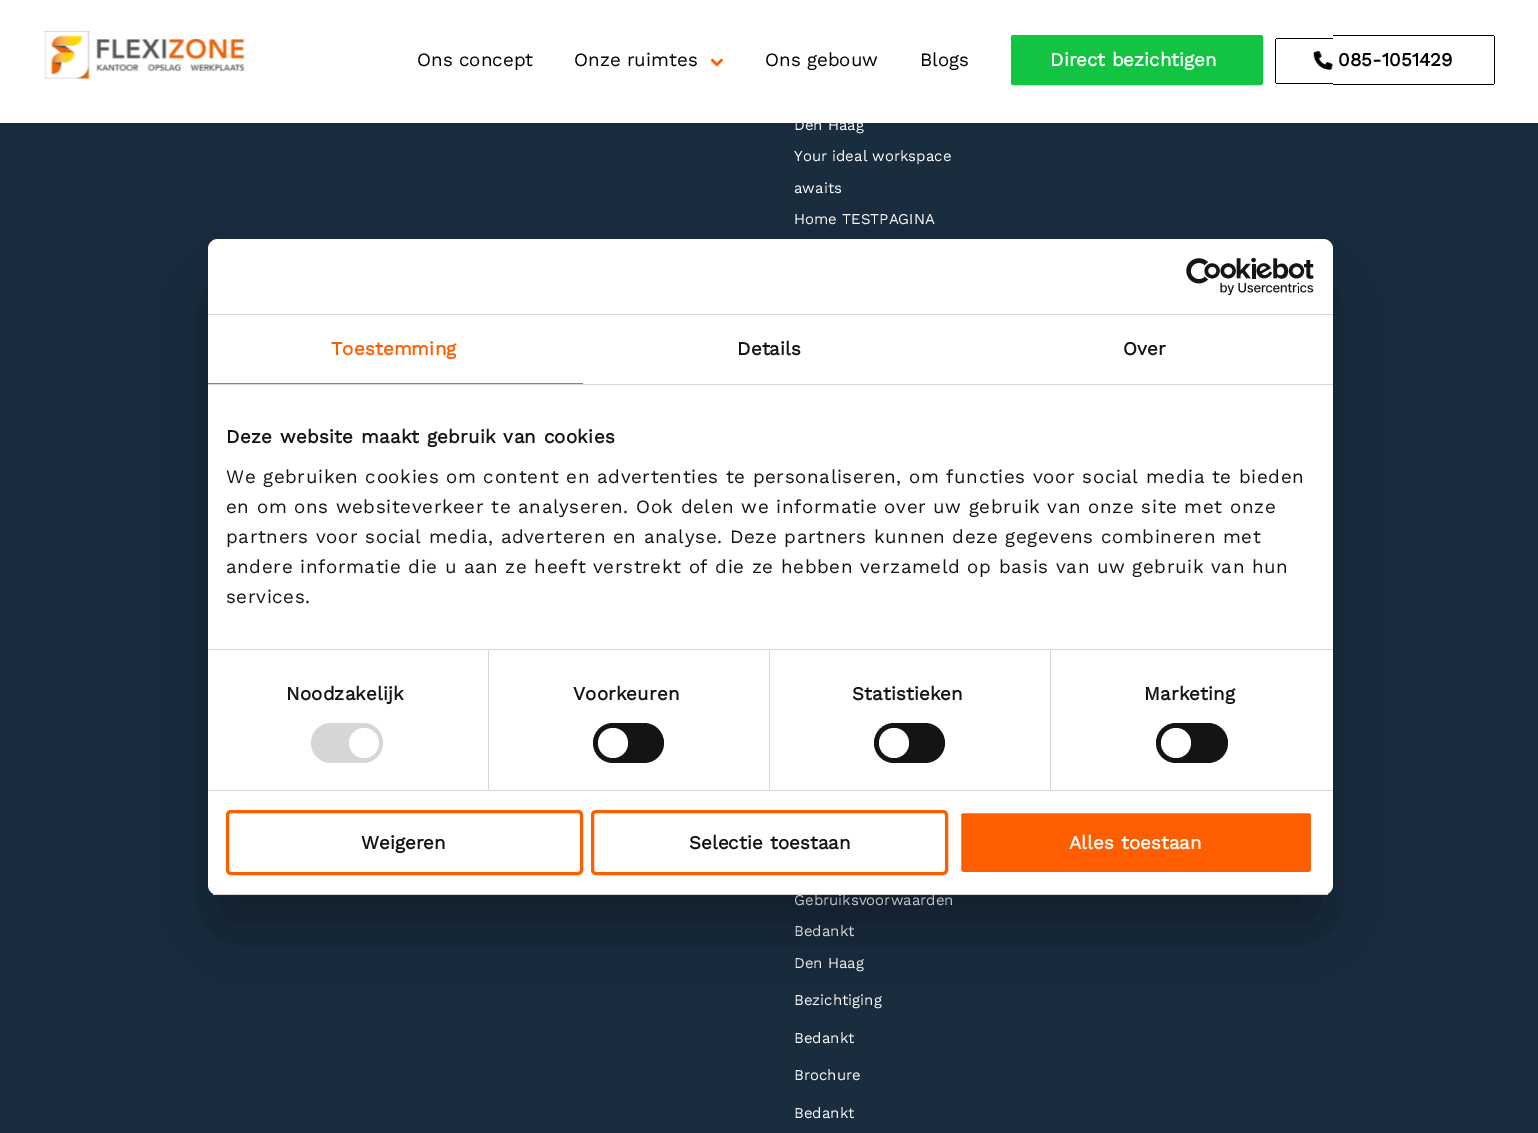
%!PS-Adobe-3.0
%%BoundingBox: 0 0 1538 1133
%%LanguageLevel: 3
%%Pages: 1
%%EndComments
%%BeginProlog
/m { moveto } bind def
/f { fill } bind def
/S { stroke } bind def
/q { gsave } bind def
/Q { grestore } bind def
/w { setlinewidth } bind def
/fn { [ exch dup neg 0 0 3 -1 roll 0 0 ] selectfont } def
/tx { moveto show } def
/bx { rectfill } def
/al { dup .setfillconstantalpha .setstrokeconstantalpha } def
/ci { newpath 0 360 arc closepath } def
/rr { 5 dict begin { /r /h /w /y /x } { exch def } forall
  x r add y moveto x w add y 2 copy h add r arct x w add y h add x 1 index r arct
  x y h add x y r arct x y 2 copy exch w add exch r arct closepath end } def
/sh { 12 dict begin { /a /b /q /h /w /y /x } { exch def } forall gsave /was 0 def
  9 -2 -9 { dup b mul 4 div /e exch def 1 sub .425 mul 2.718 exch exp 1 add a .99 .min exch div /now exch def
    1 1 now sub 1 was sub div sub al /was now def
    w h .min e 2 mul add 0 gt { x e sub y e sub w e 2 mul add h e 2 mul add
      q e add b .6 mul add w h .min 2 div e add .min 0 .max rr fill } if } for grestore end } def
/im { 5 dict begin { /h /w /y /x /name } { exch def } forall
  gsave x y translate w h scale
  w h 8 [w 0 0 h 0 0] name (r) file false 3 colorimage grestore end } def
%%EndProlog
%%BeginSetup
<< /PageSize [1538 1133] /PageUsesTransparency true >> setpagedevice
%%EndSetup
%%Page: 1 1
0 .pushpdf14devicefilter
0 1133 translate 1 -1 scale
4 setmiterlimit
0.098 0.176 0.247 setrgbcolor
0 0 1538 1133 bx
0 setgray
0 0 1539 123 0 6 0.2 sh
1 setgray
0 0 1538 123 bx
(image0.raw) 44 31 200 48 im
/WorkSans-Regular 18.75 fn
0 setgray
(Ons concept) 417 66 tx
(Onze ruimtes) 574 66 tx
(image1.raw) 710 58 13 9 im
(Ons gebouw) 765 66 tx
(Blogs) 920 66 tx
0.075 0.769 0.263 setrgbcolor
1011.5 35.5 251 49 2 rr q f Q
S
/WorkSans-Bold 18.75 fn
1 setgray
(Direct bezichtigen) 1050 66 tx
(image2.raw) 1313 51 20 19 im
0 setgray
(085-1051429) 1338 66 tx
1276 38 57 1 bx
1276 83 57 1 bx
1275 39 1 44 bx
1333 35 161 1 bx
1494 36 1 48 bx
1333 84 161 1 bx
/WorkSans-Regular 15 fn
1 setgray
(Den Haag) 794 130 tx
(Your ideal workspace) 794 161 tx
(awaits) 794 193 tx
(Home TESTPAGINA) 794 224 tx
(Gebruiksvoorwaarden) 794 905 tx
(Bedankt) 794 936 tx
(Den Haag) 794 968 tx
(Bezichtiging) 794 1005 tx
(Bedankt) 794 1043 tx
(Brochure) 794 1080 tx
(Bedankt) 794 1118 tx
0 setgray
208 279 1125 656 10 42.5 0.3 sh
1 setgray
208 239 1125 656 10 rr f
0.839 setgray
208 314 1125 1 bx
(image3.raw) 1186 258 128 37 im
208 384 1125 1 bx
1 0.369 0 setrgbcolor
208 383 375 1 bx
/WorkSans-Bold 18.75 fn
331 355 m 0.1 0 (Toestemming) ashow
0.078 setgray
737 355 m 0.1 0 (Details) ashow
1123 355 m 0.1 0 (Over) ashow
0.839 setgray
208 649 1125 1 bx
0.078 setgray
226 443 m 0.5 0 32 0.3 0 (Deze website maakt gebruik van cookies) awidthshow
/WorkSans-Regular 18.75 fn
226 483 m 0.62 0 (We gebruiken cookies om content en advertenties te personaliseren, om functies voor social media te bieden) ashow
226 513 m 0.62 0 (en om ons websiteverkeer te analyseren. Ook delen we informatie over uw gebruik van onze site met onze) ashow
226 543 m 0.62 0 (partners voor social media, adverteren en analyse. Deze partners kunnen deze gegevens combineren met) ashow
226 573 m 0.62 0 (andere informatie die u aan ze heeft verstrekt of die ze hebben verzameld op basis van uw gebruik van hun) ashow
226 603 m 0.62 0 (services.) ashow
0.839 setgray
208 790 1125 1 bx
488 650 1 140 bx
/WorkSans-Bold 18.75 fn
0.078 setgray
286 700 m 0.1 0 (Noodzakelijk) ashow
0.839 setgray
311 723 72 40 20 rr f
1 setgray
364 743 15 ci f
0.839 setgray
769 650 1 140 bx
0.078 setgray
573 700 m 0.1 0 (Voorkeuren) ashow
593 723 71 40 20 rr f
1 setgray
613 743 15 ci f
0.839 setgray
1050 650 1 140 bx
0.078 setgray
852 700 m 0.1 0 (Statistieken) ashow
874 723 71 40 20 rr f
1 setgray
894 743 15 ci f
0.078 setgray
1144 700 m 0.1 0 (Marketing) ashow
1156 723 72 40 20 rr f
1 setgray
1176 743 15 ci f
q
208 239 1125 656 10 rr clip newpath
0.839 setgray
208 894 1125 1 bx
Q
1 0.369 0 setrgbcolor
3 w
227.5 811.5 354 62 3.5 rr S
0.078 setgray
(Weigeren) 361 849 tx
1 0.369 0 setrgbcolor
592.5 811.5 354 62 3.5 rr S
0.078 setgray
689 849 m 1 0 32 (Selectie toestaan) widthshow
1 0.369 0 setrgbcolor
959.5 811.5 353 62 3.5 rr q f Q
1 setgray
S
1069 849 m 1 0 32 (Alles toestaan) widthshow
.poppdf14devicefilter showpage
%%EOF
